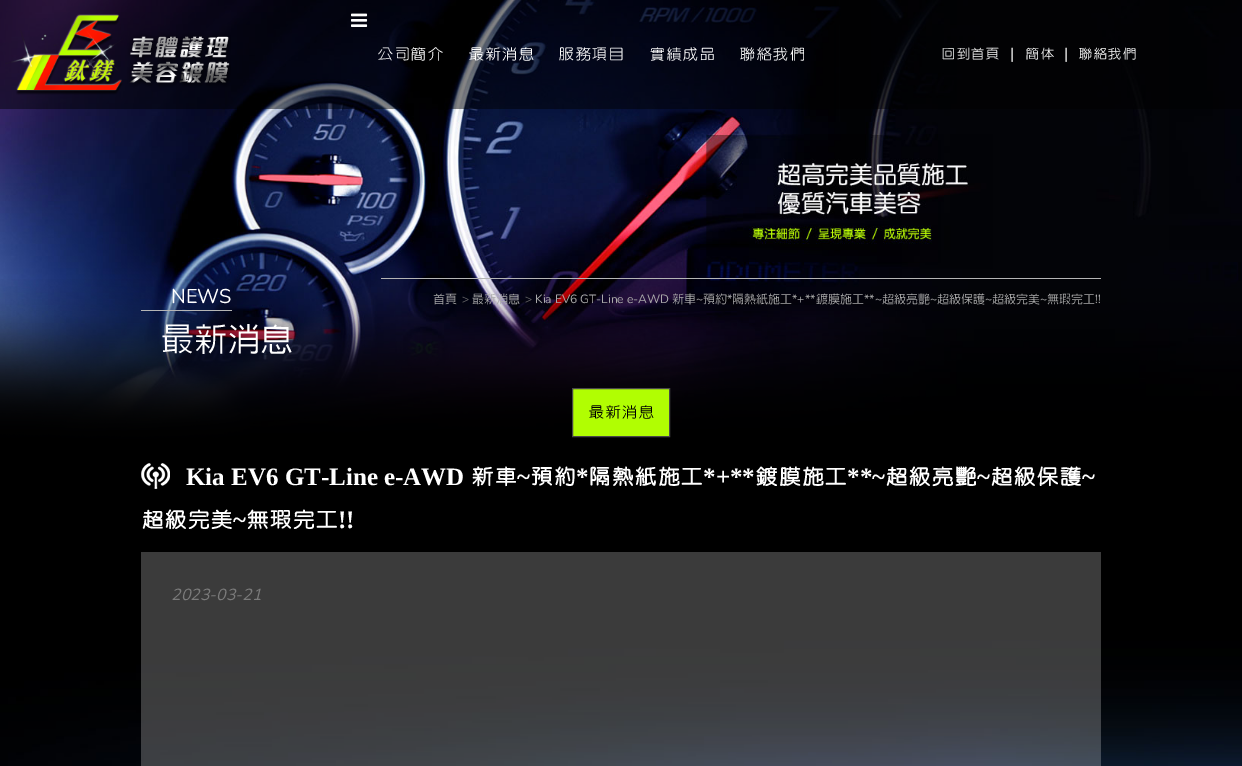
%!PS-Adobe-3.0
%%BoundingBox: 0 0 1242 766
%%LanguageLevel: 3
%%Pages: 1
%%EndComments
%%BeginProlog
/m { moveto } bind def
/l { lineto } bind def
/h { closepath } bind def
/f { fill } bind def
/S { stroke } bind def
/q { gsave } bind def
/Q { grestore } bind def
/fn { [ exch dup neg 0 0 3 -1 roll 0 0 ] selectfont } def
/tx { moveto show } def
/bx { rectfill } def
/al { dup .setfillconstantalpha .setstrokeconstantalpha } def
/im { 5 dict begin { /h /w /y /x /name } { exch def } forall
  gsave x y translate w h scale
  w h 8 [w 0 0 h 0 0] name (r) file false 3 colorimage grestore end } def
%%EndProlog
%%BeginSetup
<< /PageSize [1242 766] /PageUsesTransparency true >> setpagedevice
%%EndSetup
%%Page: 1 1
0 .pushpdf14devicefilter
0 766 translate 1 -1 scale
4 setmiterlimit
1 setgray
0 0 1242 766 bx
(image0.raw) 0 447 1242 319 im
(image1.raw) 0 0 1242 447 im
(image2.raw) 0 279 1242 168 im
0.48 al
0 setgray
0 0 1242 109 bx
1 al
(image3.raw) 5 14 226 81 im
(image4.raw) 351 13 17 14 im
/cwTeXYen-Medium 18 fn
1 setgray
(公司簡介) 377 60 tx
(最新消息) 468 60 tx
(服務項目) 558 60 tx
(實績成品) 649 60 tx
(聯絡我們) 739 60 tx
/cwTeXYen-Medium 16 fn
(回到首頁) 941 59 tx
/Nunito-ExtraLight 16 fn
(|) 1010 59 tx
/cwTeXYen-Medium 16 fn
(簡体) 1025 59 tx
/Nunito-ExtraLight 16 fn
(|) 1064 59 tx
/cwTeXYen-Medium 16 fn
(聯絡我們) 1078 59 tx
0.71 setgray
141 310 91 1 bx
/Nunito-ExtraLight 20 fn
1 setgray
(NEWS) 171 303 tx
/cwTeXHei-Medium 33 fn
(最新消息) 161 350 tx
0.71 setgray
381 278 720 1 bx
/cwTeXHei-Medium 12 fn
0.671 setgray
(首頁) 433 303 tx
/Nunito-ExtraLight 12 fn
0.396 setgray
(>) 462 303 tx
/cwTeXHei-Medium 12 fn
0.671 setgray
(最新消息) 472 303 tx
/Nunito-ExtraLight 12 fn
0.396 setgray
(>) 525 303 tx
0.671 setgray
(Kia EV6 GT-Line e-AWD) 535 303 tx
/cwTeXHei-Medium 12 fn
(新車) 672 303 tx
/Nunito-ExtraLight 12 fn
(~) 696 303 tx
/cwTeXHei-Medium 12 fn
(預約) 703 303 tx
/Nunito-ExtraLight 12 fn
(*) 727 303 tx
/cwTeXHei-Medium 12 fn
(隔熱紙施工) 732 303 tx
/Nunito-ExtraLight 12 fn
(*+**) 792 303 tx
/cwTeXHei-Medium 12 fn
(鍍膜施工) 816 303 tx
/Nunito-ExtraLight 12 fn
(**~) 864 303 tx
/cwTeXHei-Medium 12 fn
(超級亮艷) 882 303 tx
/Nunito-ExtraLight 12 fn
(~) 930 303 tx
/cwTeXHei-Medium 12 fn
(超級保護) 937 303 tx
/Nunito-ExtraLight 12 fn
(~) 985 303 tx
/cwTeXHei-Medium 12 fn
(超級完美) 992 303 tx
/Nunito-ExtraLight 12 fn
(~) 1040 303 tx
/cwTeXHei-Medium 12 fn
(無瑕完工) 1047 303 tx
/Nunito-ExtraLight 12 fn
(!!) 1095 303 tx
0.694 0.996 0.008 setrgbcolor
572.5 388.5 m 669.5 388.5 l 669.5 436.5 l 572.5 436.5 l h q f Q
0.282 setgray
S
/cwTeXYen-Medium 18 fn
0 setgray
(最新消息) 588 418 tx
(image5.raw) 141 463 29 26 im
/LiberationSerif-Bold 25 fn
1 setgray
(Kia EV6 GT-Line e-AWD) 186 485 tx
/cwTeXYen-Bold 25 fn
(新車) 471 485 tx
/LiberationSerif-Bold 25 fn
(~) 517 485 tx
/cwTeXYen-Bold 25 fn
(預約) 530 485 tx
/LiberationSerif-Bold 25 fn
(*) 576 485 tx
/cwTeXYen-Bold 25 fn
(隔熱紙施工) 588 485 tx
/LiberationSerif-Bold 25 fn
(*+**) 703 485 tx
/cwTeXYen-Bold 25 fn
(鍍膜施工) 755 485 tx
/LiberationSerif-Bold 25 fn
(**~) 847 485 tx
/cwTeXYen-Bold 25 fn
(超級亮艷) 885 485 tx
/LiberationSerif-Bold 25 fn
(~) 977 485 tx
/cwTeXYen-Bold 25 fn
(超級保護) 990 485 tx
/LiberationSerif-Bold 25 fn
(~) 1082 485 tx
/cwTeXYen-Bold 25 fn
(超級完美) 141 528 tx
/LiberationSerif-Bold 25 fn
(~) 233 528 tx
/cwTeXYen-Bold 25 fn
(無瑕完工) 246 528 tx
/LiberationSerif-Bold 25 fn
(!!) 338 528 tx
0.23 al
141 552 960 214 bx
/Nunito-ExtraLightItalic 16 fn
1 al
0.482 setgray
(2023-03-21) 171 600 tx
.poppdf14devicefilter showpage
%%EOF
